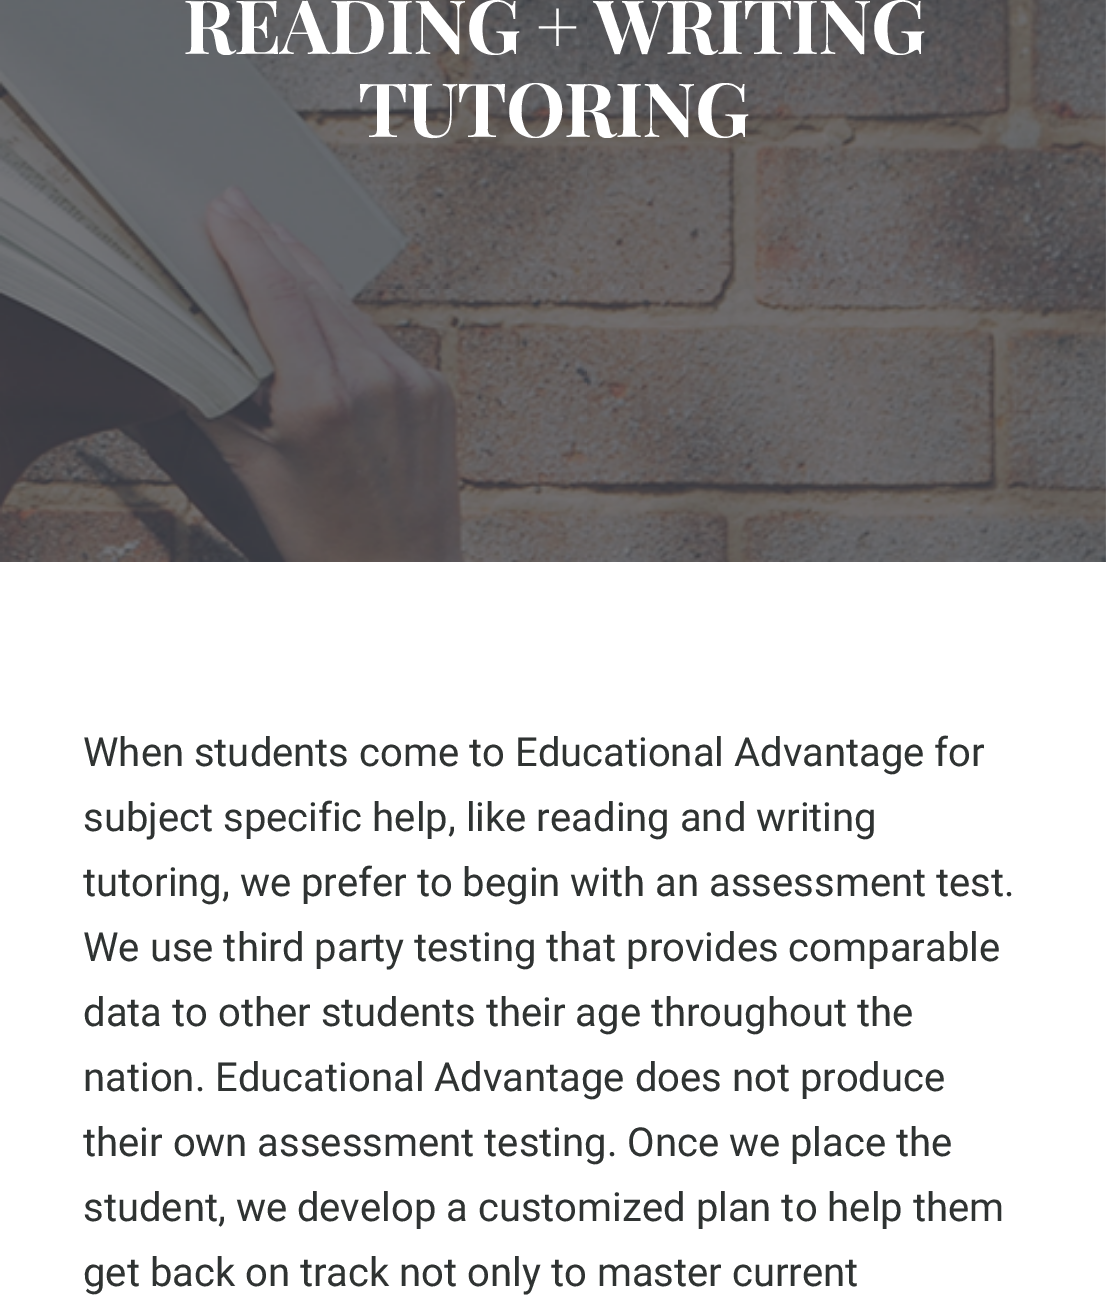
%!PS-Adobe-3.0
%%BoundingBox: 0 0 1106 1299
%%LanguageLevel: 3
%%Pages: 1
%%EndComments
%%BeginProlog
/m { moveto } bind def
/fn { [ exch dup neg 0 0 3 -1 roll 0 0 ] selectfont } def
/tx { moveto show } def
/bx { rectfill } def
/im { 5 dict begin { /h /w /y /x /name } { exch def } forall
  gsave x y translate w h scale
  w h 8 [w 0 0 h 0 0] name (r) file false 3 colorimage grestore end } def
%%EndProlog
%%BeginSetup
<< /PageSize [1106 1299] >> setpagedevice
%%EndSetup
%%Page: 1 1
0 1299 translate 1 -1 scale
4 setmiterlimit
1 setgray
0 0 1106 1299 bx
(image0.raw) 0 0 1106 562 im
/PlayfairDisplay-Bold 75 fn
183 54 m -1.25 0 (READING + WRITING) ashow
358 137 m -1.25 0 (TUTORING) ashow
/Roboto-Regular 40 fn
0.184 0.2 0.196 setrgbcolor
(When students come to Educational Advantage for) 83 766 tx
(subject specific help, like reading and writing) 83 831 tx
(tutoring, we prefer to begin with an assessment test.) 83 896 tx
(We use third party testing that provides comparable) 83 961 tx
(data to other students their age throughout the) 83 1026 tx
(nation. Educational Advantage does not produce) 83 1091 tx
(their own assessment testing. Once we place the) 83 1156 tx
(student, we develop a customized plan to help them) 83 1221 tx
(get back on track not only to master current) 83 1286 tx
showpage
%%EOF
